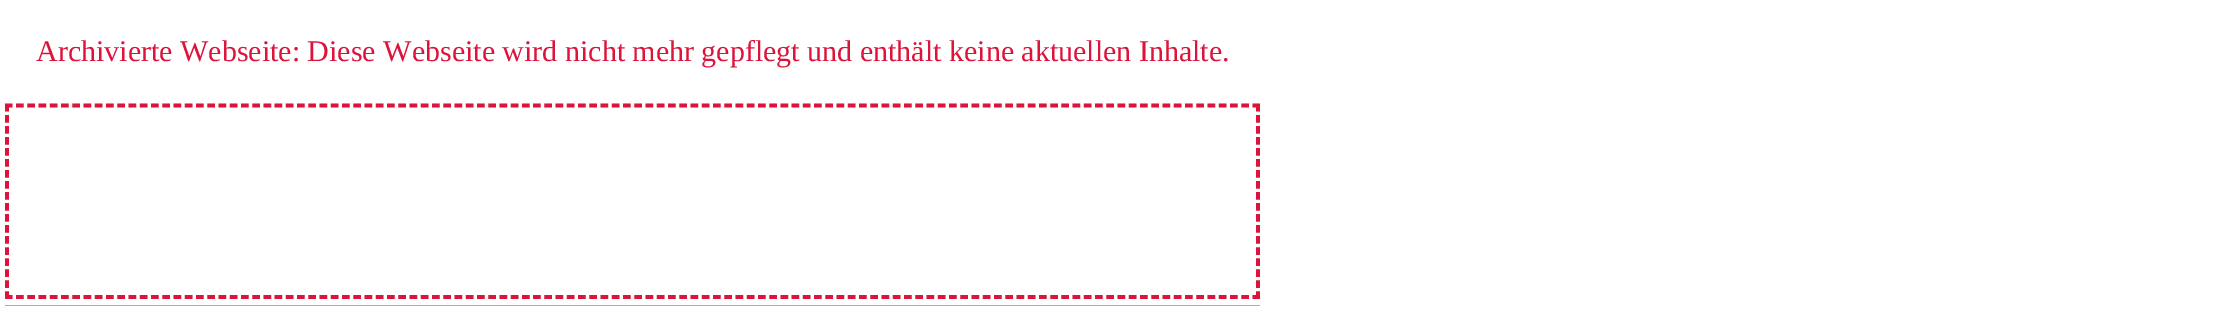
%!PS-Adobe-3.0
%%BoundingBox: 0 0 2239 320
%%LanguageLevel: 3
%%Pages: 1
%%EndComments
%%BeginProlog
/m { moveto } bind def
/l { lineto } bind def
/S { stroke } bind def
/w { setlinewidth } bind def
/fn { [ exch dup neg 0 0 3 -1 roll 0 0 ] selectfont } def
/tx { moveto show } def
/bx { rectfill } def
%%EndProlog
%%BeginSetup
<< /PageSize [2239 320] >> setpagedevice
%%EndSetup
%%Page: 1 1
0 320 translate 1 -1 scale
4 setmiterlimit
1 setgray
0 0 2239 320 bx
/LiberationSerif-Regular 30 fn
0.863 0.078 0.235 setrgbcolor
(Archivierte Webseite: Diese Webseite wird nicht mehr gepflegt und enthält keine aktuellen Inhalte.) 36 61 tx
3.8 w
[7.5 3.74] 0 setdash
5 105.5 m 1260 105.5 l S
[7.5 3.52] 0 setdash
1258 104 m 1258 299 l S
[7.5 3.74] 0 setdash
5 297 m 1260 297 l S
[7.5 3.52] 0 setdash
7 104 m 7 299 l S
0.6 0.8 0.2 setrgbcolor
5 305 1255 1 bx
showpage
%%EOF
